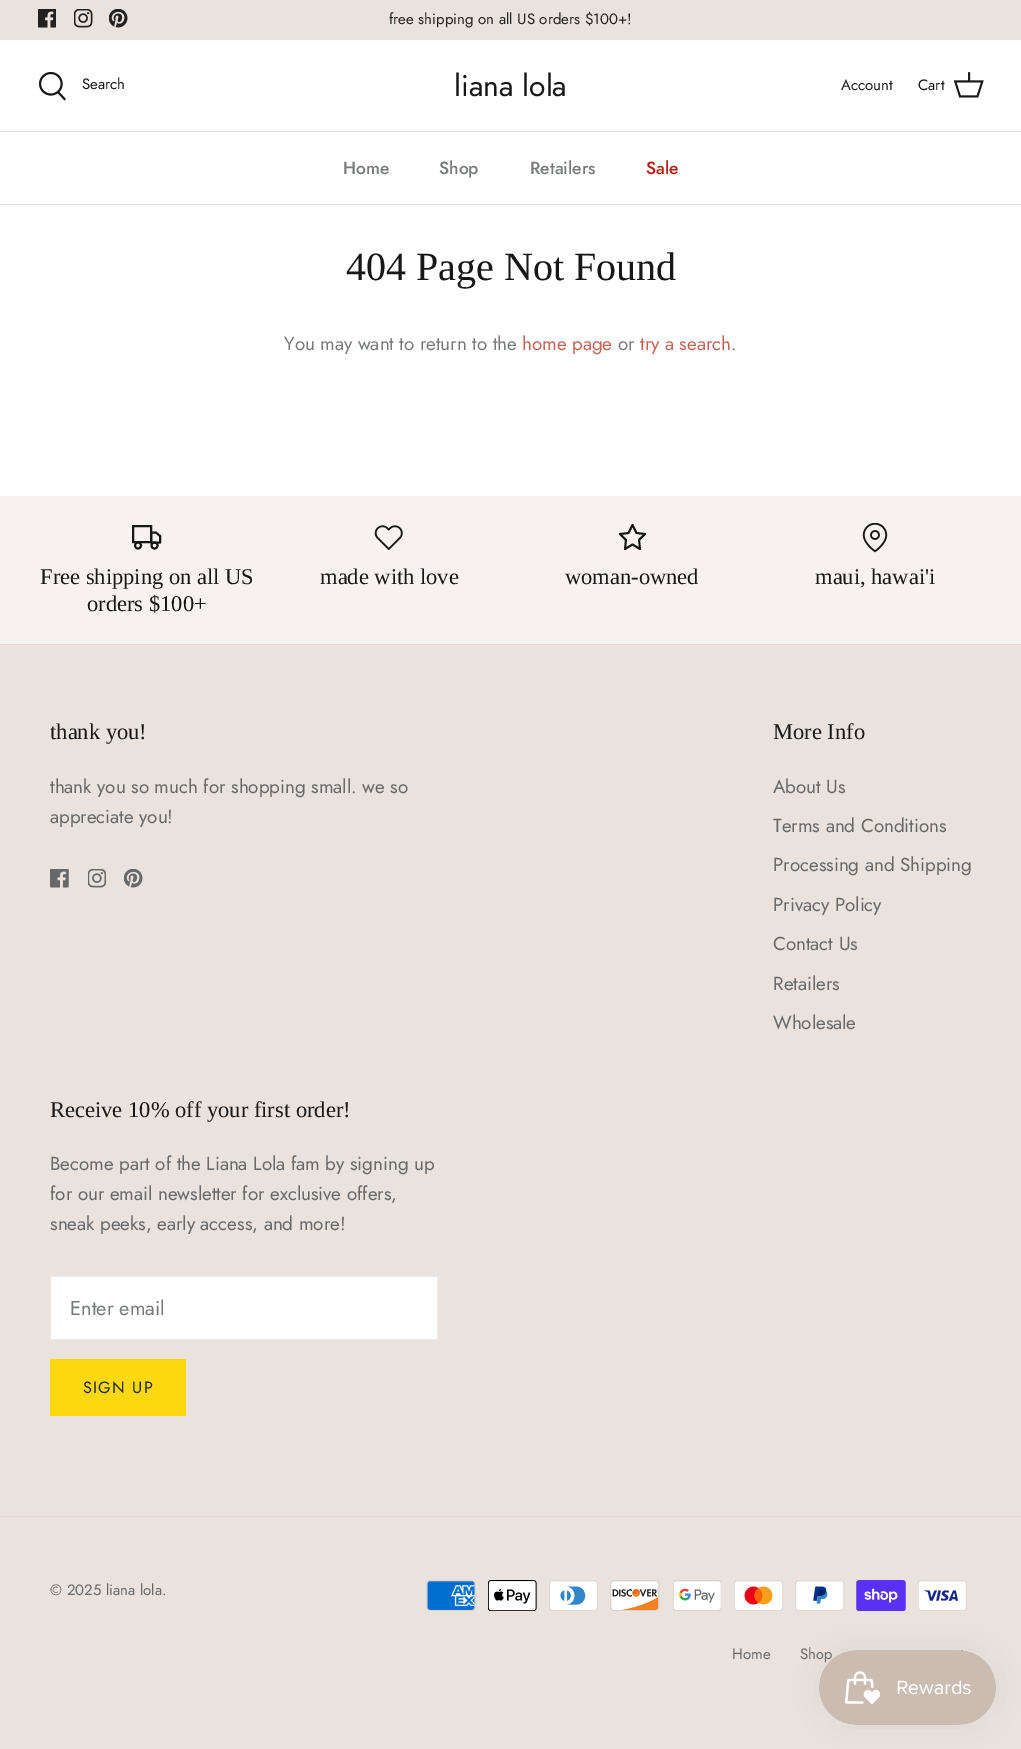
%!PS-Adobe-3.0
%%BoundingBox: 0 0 1021 1749
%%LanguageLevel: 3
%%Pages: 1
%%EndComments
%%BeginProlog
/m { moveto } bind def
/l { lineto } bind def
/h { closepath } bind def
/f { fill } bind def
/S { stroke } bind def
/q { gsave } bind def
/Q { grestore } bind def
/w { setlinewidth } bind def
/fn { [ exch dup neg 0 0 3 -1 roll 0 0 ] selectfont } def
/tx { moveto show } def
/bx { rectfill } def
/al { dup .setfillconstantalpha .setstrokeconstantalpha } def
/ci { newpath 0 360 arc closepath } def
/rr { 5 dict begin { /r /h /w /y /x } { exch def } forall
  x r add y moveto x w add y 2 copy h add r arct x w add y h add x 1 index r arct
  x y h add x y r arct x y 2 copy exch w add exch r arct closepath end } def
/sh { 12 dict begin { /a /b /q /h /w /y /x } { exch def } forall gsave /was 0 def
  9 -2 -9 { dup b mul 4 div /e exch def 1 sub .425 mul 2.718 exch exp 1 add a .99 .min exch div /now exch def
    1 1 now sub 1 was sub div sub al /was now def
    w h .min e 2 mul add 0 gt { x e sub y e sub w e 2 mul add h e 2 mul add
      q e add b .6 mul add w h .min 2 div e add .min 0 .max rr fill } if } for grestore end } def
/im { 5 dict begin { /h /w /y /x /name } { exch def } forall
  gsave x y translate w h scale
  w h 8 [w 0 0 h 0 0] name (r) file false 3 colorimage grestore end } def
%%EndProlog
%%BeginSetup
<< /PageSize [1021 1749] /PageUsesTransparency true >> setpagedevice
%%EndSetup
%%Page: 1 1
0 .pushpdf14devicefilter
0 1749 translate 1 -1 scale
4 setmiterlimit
1 setgray
0 0 1021 1749 bx
0.914 0.886 0.867 setrgbcolor
0 0 1021 40 bx
(image0.raw) 38 9 18 19 im
(image1.raw) 74 9 19 19 im
(image2.raw) 109 9 19 19 im
/Jost-Regular 15 fn
0.129 setgray
(free shipping on all US orders $100+!) 389 24 tx
0.875 0.89 0.91 setrgbcolor
0 131 1021 1 bx
(image3.raw) 38 71 28 30 im
0.09 setgray
(Search) 82 89 tx
/Jost-Regular 30 fn
(liana lola) 454 96 tx
/Jost-Regular 15 fn
(Account) 841 90 tx
(Cart) 918 90 tx
(image4.raw) 954 72 30 26 im
0.875 0.89 0.91 setrgbcolor
0 204 1021 1 bx
/Jost-Medium 17.5 fn
0.471 0.478 0.486 setrgbcolor
(Home) 343 174 tx
(Shop) 439 174 tx
(Retailers) 530 174 tx
0.714 0.114 0.059 setrgbcolor
(Sale) 646 174 tx
/LiberationSerif-Regular 40 fn
0.09 setgray
(404 Page Not Found) 346 280 tx
/Jost-Regular 18.75 fn
0.471 0.478 0.486 setrgbcolor
(You may want to return to the) 284 350 tx
0.757 0.392 0.322 setrgbcolor
(home page) 522 350 tx
0.471 0.478 0.486 setrgbcolor
(or) 618 350 tx
0.757 0.392 0.322 setrgbcolor
(try a search) 640 350 tx
0.471 0.478 0.486 setrgbcolor
(.) 731 350 tx
0.914 0.886 0.867 setrgbcolor
0 645 1021 1104 bx
0.969 0.945 0.941 setrgbcolor
0 496 1021 148 bx
0.09 setgray
2 w
133 526 18 16 rectstroke
1.9 w
1 setlinecap
1 setlinejoin
151 532.5 m 156 532.5 l 160 536 l 160 542.5 l 151 542.5 l h S
0 setlinecap
0 setlinejoin
138 545.5 3 ci S
154.5 545.5 3 ci S
/LiberationSerif-Regular 22.5 fn
(Free shipping on all US) 40 584 tx
(orders $100+) 87 611 tx
(image5.raw) 374 525 29 25 im
(made with love) 320 584 tx
1 setlinecap
1 setlinejoin
632.5 525 m 636.5 533 l 645 534 l 639 540 l 640 549 l 632.5 544.5 l 625 549 l 626 540 l 620 534 l 628.5 533 l h S
(woman-owned) 565 584 tx
(image6.raw) 862 523 26 30 im
(maui, hawai'i) 815 584 tx
0.925 0.839 0.82 setrgbcolor
0 644 1021 1 bx
0.09 setgray
(thank you!) 50 739 tx
/Jost-Regular 18.75 fn
0.404 0.408 0.412 setrgbcolor
(thank you so much for shopping small. we so) 50 793 tx
(appreciate you!) 50 823 tx
(image7.raw) 50 869 19 19 im
(image8.raw) 88 869 18 19 im
(image9.raw) 124 869 19 19 im
/LiberationSerif-Regular 22.5 fn
0.09 setgray
(More Info) 773 739 tx
/Jost-Regular 18.75 fn
0.404 0.408 0.412 setrgbcolor
(About Us) 773 793 tx
(Terms and Conditions) 773 832 tx
(Processing and Shipping) 773 871 tx
(Privacy Policy) 773 911 tx
(Contact Us) 773 950 tx
(Retailers) 773 990 tx
(Wholesale) 773 1029 tx
/LiberationSerif-Regular 22.5 fn
0.09 setgray
(Receive 10% off your first order!) 50 1117 tx
/Jost-Regular 18.75 fn
0.404 0.408 0.412 setrgbcolor
(Become part of the Liana Lola fam by signing up) 50 1170 tx
(for our email newsletter for exclusive offers,) 50 1200 tx
(sneak peeks, early access, and more!) 50 1230 tx
1 setgray
50.5 1276.5 m 437.5 1276.5 l 437.5 1339.5 l 50.5 1339.5 l h q f Q
0.922 setgray
1 w
0 setlinecap
0 setlinejoin
S
/Jost-Regular 20 fn
0.471 0.478 0.486 setrgbcolor
(Enter email) 70 1315 tx
0.996 0.847 0.055 setrgbcolor
50 1359 136 57 bx
/Jost-Regular 16.25 fn
0.129 0.169 0.212 setrgbcolor
83 1393 m 1.25 0 (SIGN UP) ashow
0.925 0.839 0.82 setrgbcolor
0 1516 1021 1 bx
/Jost-Regular 15 fn
0.404 0.408 0.412 setrgbcolor
(© 2025 liana lola.) 50 1595 tx
(image10.raw) 426 1580 50 31 im
(image11.raw) 488 1580 49 31 im
(image12.raw) 549 1580 49 31 im
(image13.raw) 610 1580 50 31 im
(image14.raw) 673 1580 48 31 im
(image15.raw) 734 1580 49 31 im
(image16.raw) 795 1580 50 31 im
(image17.raw) 856 1580 50 31 im
(image18.raw) 918 1580 49 31 im
(Home) 732 1659 tx
(Shop) 800 1659 tx
0 setgray
819 1650 177 75 37.5 15.5 0.05 sh
(image19.raw) 819 1650 177 75 im
.poppdf14devicefilter showpage
%%EOF
